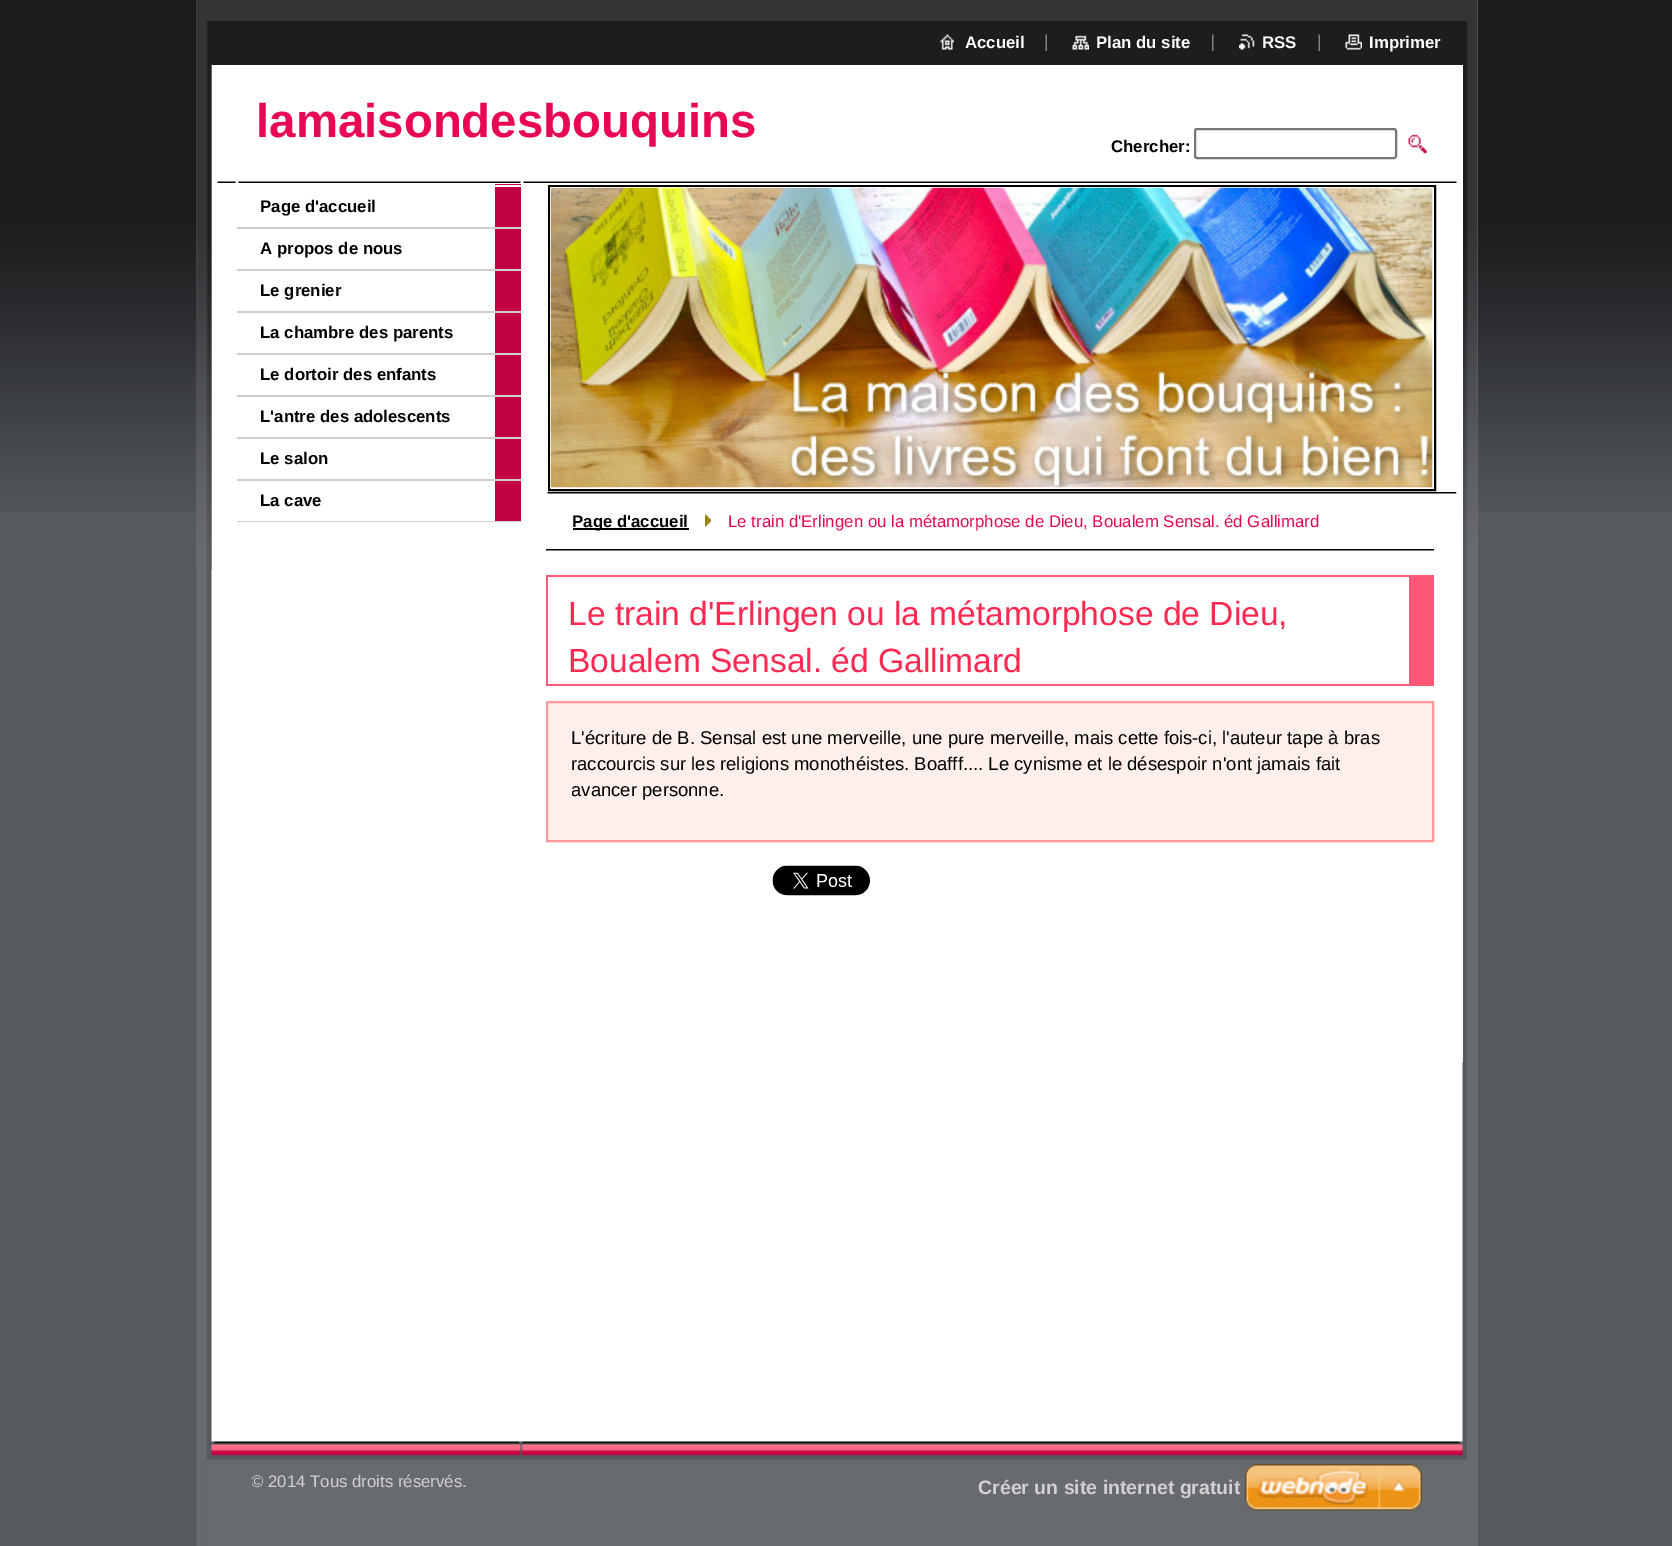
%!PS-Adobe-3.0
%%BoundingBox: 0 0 1672 1546
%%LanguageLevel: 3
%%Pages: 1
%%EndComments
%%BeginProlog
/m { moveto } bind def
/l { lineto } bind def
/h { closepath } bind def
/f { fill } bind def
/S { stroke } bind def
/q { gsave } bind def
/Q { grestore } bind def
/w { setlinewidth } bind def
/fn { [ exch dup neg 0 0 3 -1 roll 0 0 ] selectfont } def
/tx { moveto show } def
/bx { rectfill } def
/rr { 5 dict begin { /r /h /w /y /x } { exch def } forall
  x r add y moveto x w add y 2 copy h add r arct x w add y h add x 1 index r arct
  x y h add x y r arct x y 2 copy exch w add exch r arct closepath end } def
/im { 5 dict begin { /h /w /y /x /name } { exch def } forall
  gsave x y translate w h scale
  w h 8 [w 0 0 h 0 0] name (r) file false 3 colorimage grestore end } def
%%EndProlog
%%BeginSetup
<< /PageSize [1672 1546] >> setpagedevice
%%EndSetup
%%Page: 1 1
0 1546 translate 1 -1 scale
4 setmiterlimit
0.337 0.349 0.365 setrgbcolor
0 0 1672 1546 bx
(image0.raw) 0 0 1672 511 im
0.404 0.416 0.431 setrgbcolor
1467 0 11 1546 bx
(image1.raw) 196 0 1271 1546 im
(image2.raw) 196 0 1282 570 im
1 setgray
1462 65 1 997 bx
0.196 0.204 0.212 setrgbcolor
212 20 1251 1 bx
0.106 0.114 0.122 setrgbcolor
212 21 1251 44 bx
(image3.raw) 940 34 14 16 im
/LiberationSans-Bold 16.8 fn
1 setgray
(Accueil) 965 48 tx
(image4.raw) 1045 34 2 17 im
(image5.raw) 1072 35 17 15 im
(Plan du site) 1096 48 tx
(image6.raw) 1212 34 2 17 im
(image7.raw) 1239 34 16 16 im
(RSS) 1262 48 tx
(image4.raw) 1318 34 2 17 im
(image8.raw) 1345 34 17 16 im
(Imprimer) 1369 48 tx
/LiberationSans-Bold 47.4 fn
0.906 0.027 0.333 setrgbcolor
(lamaisondesbouquins) 256 137 tx
/LiberationSans-Bold 16.8 fn
0 setgray
(Chercher:) 1111 152 tx
0.463 setgray
2 w
1195 129 201 29 2 rr S
(image9.raw) 1408 134 19 20 im
(image10.raw) 217 181 304 2 im
0.761 0.008 0.271 setrgbcolor
495 184 26 337 bx
1 setgray
495 185 26 2 bx
0.812 setgray
237 227 284 2 bx
0 setgray
(Page d'accueil) 260 212 tx
0.812 setgray
237 269 284 2 bx
0 setgray
(A propos de nous) 260 254 tx
0.812 setgray
237 311 284 2 bx
0 setgray
(Le grenier) 260 296 tx
0.812 setgray
237 353 284 2 bx
0 setgray
(La chambre des parents) 260 338 tx
0.812 setgray
237 395 284 2 bx
0 setgray
(Le dortoir des enfants) 260 380 tx
0.812 setgray
237 437 284 2 bx
0 setgray
(L'antre des adolescents) 260 422 tx
0.812 setgray
237 479 284 2 bx
0 setgray
(Le salon) 260 464 tx
0.812 setgray
237 521 284 1 bx
0 setgray
(La cave) 260 506 tx
(image11.raw) 523 181 934 2 im
(image12.raw) 547 492 910 2 im
549 186 886 304 rectstroke
(image13.raw) 550 187 883 301 im
(image14.raw) 546 549 888 2 im
573 528 116 2 bx
(Page d'accueil) 572 527 tx
(image15.raw) 705 514 6 13 im
/LiberationSans-Regular 16.8 fn
0.906 0.027 0.333 setrgbcolor
(Le train d'Erlingen ou la métamorphose de Dieu, Boualem Sensal. éd Gallimard) 728 527 tx
1 0.345 0.467 setrgbcolor
546 575 863 2 bx
1409 575 25 109 bx
546 684 888 2 bx
546 575 2 111 bx
/LiberationSans-Regular 33.6 fn
1 0.161 0.318 setrgbcolor
(Le train d'Erlingen ou la métamorphose de Dieu,) 568 625 tx
(Boualem Sensal. éd Gallimard) 568 672 tx
1 0.937 0.922 setrgbcolor
547 702 m 1433 702 l 1433 841 l 547 841 l h q f Q
1 0.604 0.604 setrgbcolor
S
/LiberationSans-Regular 18.5 fn
0 setgray
(L'écriture de B. Sensal est une merveille, une pure merveille, mais cette fois-ci, l'auteur tape à bras) 571 744 tx
(raccourcis sur les religions monothéistes. Boafff.... Le cynisme et le désespoir n'ont jamais fait) 571 770 tx
q
572 726 837 78 rectclip
(avancer personne.) 571 796 tx
Q
(image16.raw) 772 865 98 31 im
0.404 0.416 0.431 setrgbcolor
207 1459 1260 87 bx
(image17.raw) 207 1441 1260 19 im
q
252 1472 720 21 rectclip
/LiberationSans-Regular 16.8 fn
0.82 setgray
(© 2014 Tous droits réservés.) 251 1487 tx
Q
/LiberationSans-Bold 19.5 fn
0.82 setgray
(Créer un site internet gratuit) 978 1494 tx
(image18.raw) 1245 1464 177 47 im
showpage
%%EOF
